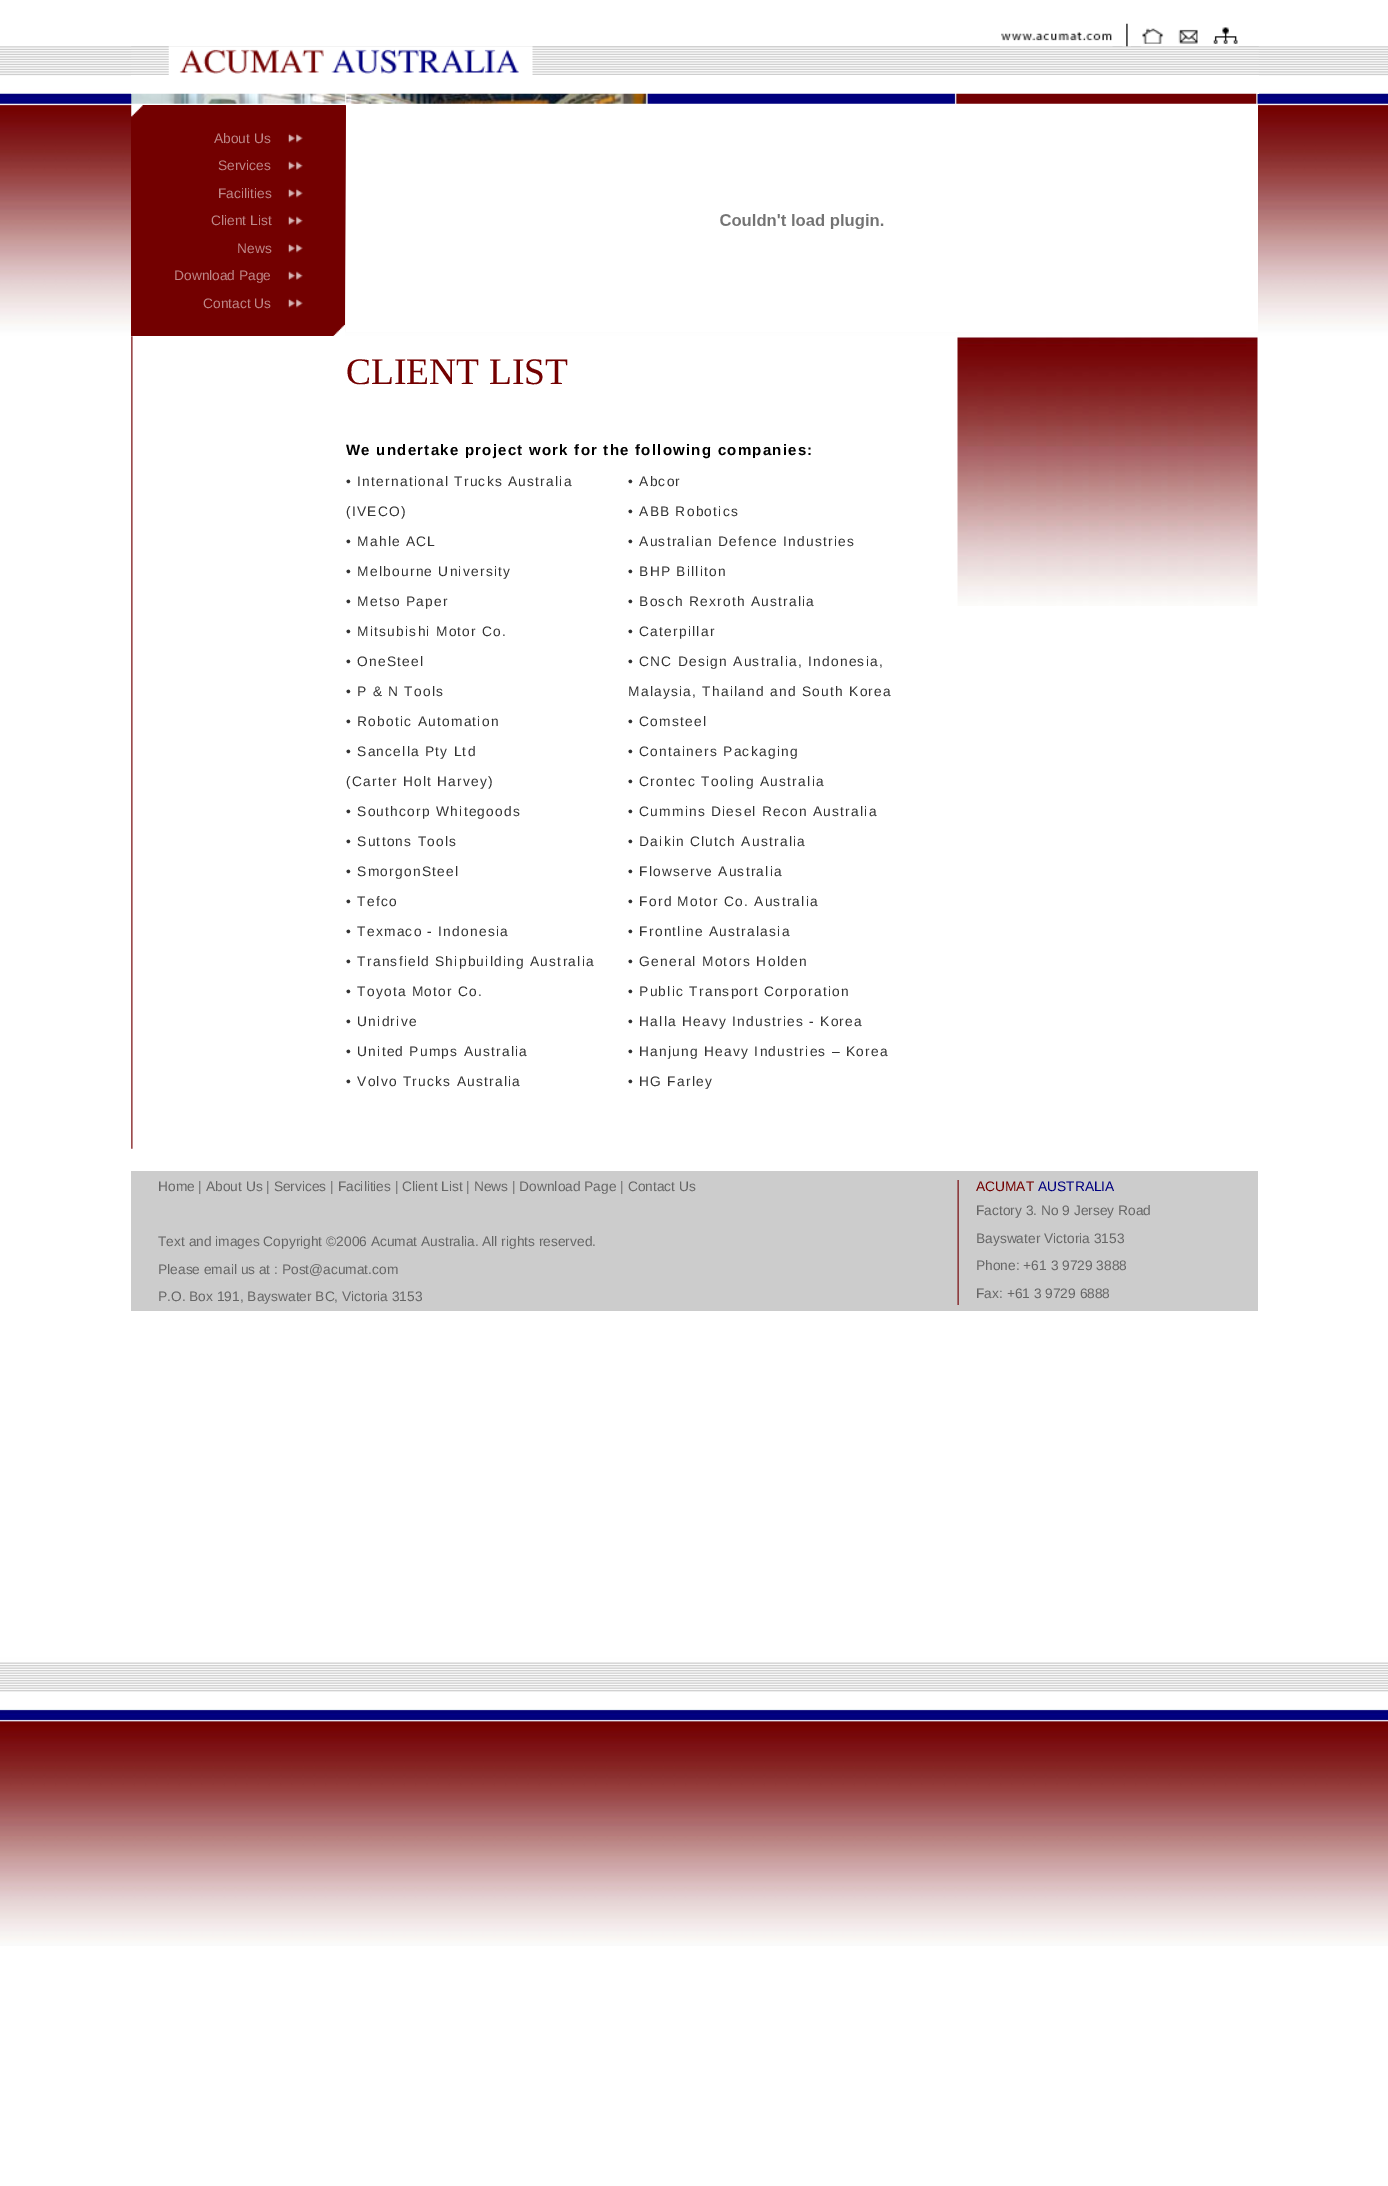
%!PS-Adobe-3.0
%%BoundingBox: 0 0 1388 2186
%%LanguageLevel: 3
%%Pages: 1
%%EndComments
%%BeginProlog
/m { moveto } bind def
/fn { [ exch dup neg 0 0 3 -1 roll 0 0 ] selectfont } def
/tx { moveto show } def
/bx { rectfill } def
/im { 5 dict begin { /h /w /y /x /name } { exch def } forall
  gsave x y translate w h scale
  w h 8 [w 0 0 h 0 0] name (r) file false 3 colorimage grestore end } def
%%EndProlog
%%BeginSetup
<< /PageSize [1388 2186] >> setpagedevice
%%EndSetup
%%Page: 1 1
0 2186 translate 1 -1 scale
4 setmiterlimit
1 setgray
0 0 1388 2186 bx
(image0.raw) 0 46 1388 1900 im
(image7.raw) 131 46 1128 27 im
(image1.raw) 1000 32 113 15 im
(image2.raw) 1122 23 9 24 im
(image3.raw) 1141 28 23 19 im
(image4.raw) 1164 46 14 1 im
(image5.raw) 1177 29 22 18 im
(image4.raw) 1199 46 14 1 im
(image6.raw) 1212 27 27 20 im
(image8.raw) 168 46 365 29 im
131 75 1128 19 bx
(image9.raw) 131 93 1127 12 im
0.451 0 0 setrgbcolor
131 105 214 231 bx
(image10.raw) 131 105 12 12 im
1 setgray
346 105 912 227 bx
(image11.raw) 720 214 164 15 im
/LiberationSans-Regular 13.75 fn
0.745 0.533 0.533 setrgbcolor
(About Us) 214 143 tx
(image12.raw) 288 133 15 10 im
(Services) 218 170 tx
(image13.raw) 288 161 15 9 im
(Facilities) 218 198 tx
(image12.raw) 288 188 15 10 im
(Client List) 211 225 tx
(image13.raw) 288 216 15 9 im
(News) 237 253 tx
(image12.raw) 288 243 15 10 im
(Download Page) 174 280 tx
(image13.raw) 288 271 15 9 im
(Contact Us) 203 308 tx
(image12.raw) 288 298 15 10 im
(image14.raw) 333 324 12 12 im
(image15.raw) 131 336 2 813 im
/LiberationSerif-Regular 37.5 fn
0.451 0 0 setrgbcolor
(CLIENT LIST) 346 384 tx
/LiberationSans-Bold 15 fn
0 setgray
346 455 m 1.25 0 (We undertake project work for the following companies:) ashow
/LiberationSans-Regular 13.75 fn
0.2 setgray
346 486 m 1.25 0 (• International Trucks Australia) ashow
346 516 m 1.25 0 (\(IVECO\)) ashow
346 546 m 1.25 0 (• Mahle ACL) ashow
346 576 m 1.25 0 (• Melbourne University) ashow
346 606 m 1.25 0 (• Metso Paper) ashow
346 636 m 1.25 0 (• Mitsubishi Motor Co.) ashow
346 666 m 1.25 0 (• OneSteel) ashow
346 696 m 1.25 0 (• P & N Tools) ashow
346 726 m 1.25 0 (• Robotic Automation) ashow
346 756 m 1.25 0 (• Sancella Pty Ltd) ashow
346 786 m 1.25 0 (\(Carter Holt Harvey\)) ashow
346 816 m 1.25 0 (• Southcorp Whitegoods) ashow
346 846 m 1.25 0 (• Suttons Tools) ashow
346 876 m 1.25 0 (• SmorgonSteel) ashow
346 906 m 1.25 0 (• Tefco) ashow
346 936 m 1.25 0 (• Texmaco - Indonesia) ashow
346 966 m 1.25 0 (• Transfield Shipbuilding Australia) ashow
346 996 m 1.25 0 (• Toyota Motor Co.) ashow
346 1026 m 1.25 0 (• Unidrive) ashow
346 1056 m 1.25 0 (• United Pumps Australia) ashow
346 1086 m 1.25 0 (• Volvo Trucks Australia) ashow
628 486 m 1.25 0 (• Abcor) ashow
628 516 m 1.25 0 (• ABB Robotics) ashow
628 546 m 1.25 0 (• Australian Defence Industries) ashow
628 576 m 1.25 0 (• BHP Billiton) ashow
628 606 m 1.25 0 (• Bosch Rexroth Australia) ashow
628 636 m 1.25 0 (• Caterpillar) ashow
628 666 m 1.25 0 (• CNC Design Australia, Indonesia,) ashow
628 696 m 1.25 0 (Malaysia, Thailand and South Korea) ashow
628 726 m 1.25 0 (• Comsteel) ashow
628 756 m 1.25 0 (• Containers Packaging) ashow
628 786 m 1.25 0 (• Crontec Tooling Australia) ashow
628 816 m 1.25 0 (• Cummins Diesel Recon Australia) ashow
628 846 m 1.25 0 (• Daikin Clutch Australia) ashow
628 876 m 1.25 0 (• Flowserve Australia) ashow
628 906 m 1.25 0 (• Ford Motor Co. Australia) ashow
628 936 m 1.25 0 (• Frontline Australasia) ashow
628 966 m 1.25 0 (• General Motors Holden) ashow
628 996 m 1.25 0 (• Public Transport Corporation) ashow
628 1026 m 1.25 0 (• Halla Heavy Industries - Korea) ashow
628 1056 m 1.25 0 (• Hanjung Heavy Industries – Korea) ashow
628 1086 m 1.25 0 (• HG Farley) ashow
(image16.raw) 957 336 301 270 im
0.8 setgray
131 1171 1127 140 bx
0.4 setgray
(Home | About Us | Services | Facilities | Client List | News | Download Page | Contact Us) 158 1191 tx
(Text and images Copyright ©2006 Acumat Australia. All rights reserved.) 158 1246 tx
(Please email us at : Post@acumat.com) 158 1274 tx
(P.O. Box 191, Bayswater BC, Victoria 3153) 158 1301 tx
(image17.raw) 957 1180 2 125 im
0.451 0 0 setrgbcolor
(ACUMAT) 976 1191 tx
0 0 0.498 setrgbcolor
(AUSTRALIA) 1038 1191 tx
0.4 setgray
(Factory 3. No 9 Jersey Road) 976 1215 tx
(Bayswater Victoria 3153) 976 1243 tx
(Phone: +61 3 9729 3888) 976 1270 tx
(Fax: +61 3 9729 6888) 976 1298 tx
showpage
%%EOF
